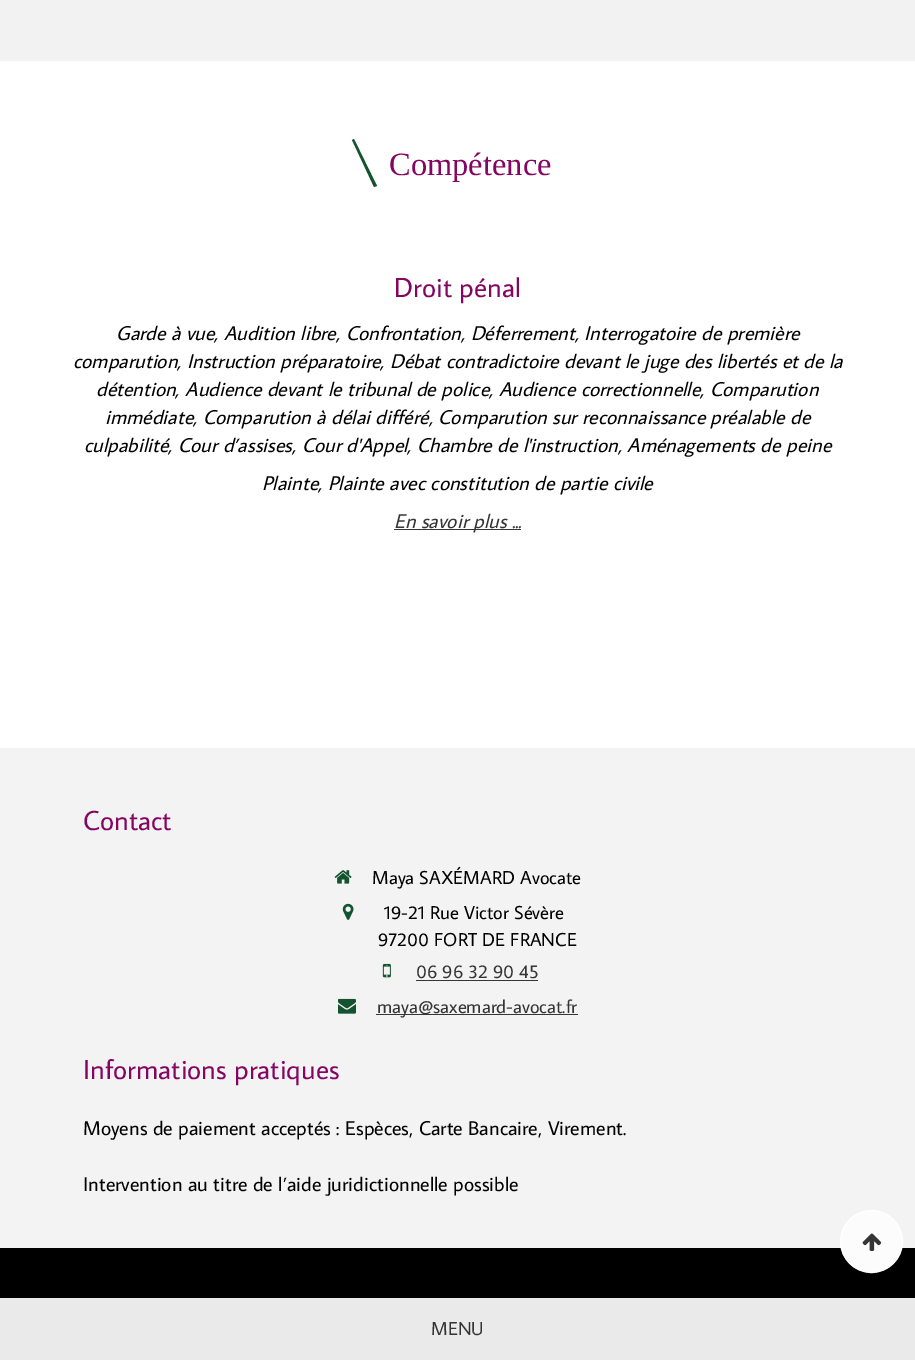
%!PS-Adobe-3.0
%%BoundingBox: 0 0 915 1360
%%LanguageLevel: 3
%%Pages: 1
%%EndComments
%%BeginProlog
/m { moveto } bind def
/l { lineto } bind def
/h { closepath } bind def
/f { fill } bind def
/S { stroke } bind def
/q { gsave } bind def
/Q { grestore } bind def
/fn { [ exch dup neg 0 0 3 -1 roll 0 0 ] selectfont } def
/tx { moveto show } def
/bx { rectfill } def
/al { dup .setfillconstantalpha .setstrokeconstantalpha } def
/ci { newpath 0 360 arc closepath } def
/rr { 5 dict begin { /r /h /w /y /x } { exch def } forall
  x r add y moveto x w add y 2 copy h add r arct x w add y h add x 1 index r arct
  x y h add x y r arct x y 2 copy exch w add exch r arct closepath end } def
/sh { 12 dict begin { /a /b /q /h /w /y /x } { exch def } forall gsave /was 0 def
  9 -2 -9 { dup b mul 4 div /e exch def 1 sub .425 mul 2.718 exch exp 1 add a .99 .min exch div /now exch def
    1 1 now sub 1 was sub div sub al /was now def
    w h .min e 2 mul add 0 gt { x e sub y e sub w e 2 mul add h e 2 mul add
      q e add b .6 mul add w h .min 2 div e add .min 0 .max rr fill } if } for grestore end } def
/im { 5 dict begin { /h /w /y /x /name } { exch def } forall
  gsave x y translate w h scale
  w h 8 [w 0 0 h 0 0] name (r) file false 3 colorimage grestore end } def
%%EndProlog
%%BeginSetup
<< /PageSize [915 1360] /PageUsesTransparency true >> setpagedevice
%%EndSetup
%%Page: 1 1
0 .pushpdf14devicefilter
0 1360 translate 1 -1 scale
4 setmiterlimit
1 setgray
0 0 915 1360 bx
0.949 setgray
0 0 915 61 bx
0.075 0.329 0.184 setrgbcolor
352 140 m 354 139 l 377 186 l 374 187 l h f
/LiberationSerif-Regular 32.5 fn
0.522 0.024 0.384 setrgbcolor
(Compétence) 389 175 tx
/AverageSans-Regular 27.5 fn
(Droit pénal) 394 297 tx
/AverageSans-Italic 20 fn
0 setgray
(Garde à vue, Audition libre, Confrontation, Déferrement, Interrogatoire de première) 116 340 tx
(comparution, Instruction préparatoire, Débat contradictoire devant le juge des libertés et de la) 73 368 tx
(détention, Audience devant le tribunal de police, Audience correctionnelle, Comparution) 96 396 tx
(immédiate, Comparution à délai différé, Comparution sur reconnaissance préalable de) 105 424 tx
(culpabilité, Cour d’assises, Cour d'Appel, Chambre de l'instruction, Aménagements de peine) 84 452 tx
(Plainte, Plainte avec constitution de partie civile) 262 490 tx
0.208 setgray
394 529 127 1 bx
(En savoir plus ...) 394 528 tx
0.953 setgray
0 748 915 500 bx
/AverageSans-Regular 27.5 fn
0.522 0.024 0.384 setrgbcolor
(Contact) 83 830 tx
(image0.raw) 334 870 18 14 im
/AverageSans-Regular 18.75 fn
0 setgray
(Maya SAXÉMARD Avocate) 372 884 tx
(image1.raw) 342 903 12 17 im
(19-21 Rue Victor Sévère) 384 919 tx
(97200 FORT DE FRANCE) 378 946 tx
(image2.raw) 382 963 9 15 im
0.208 setgray
(06 96 32 90 45) 416 978 tx
416 980 122 1 bx
(image3.raw) 338 998 18 16 im
376 1014 202 1 bx
(maya@saxemard-avocat.fr) 377 1013 tx
/AverageSans-Regular 27.5 fn
0.522 0.024 0.384 setrgbcolor
(Informations pratiques) 83 1079 tx
/AverageSans-Regular 20 fn
0 setgray
(Moyens de paiement acceptés : Espèces, Carte Bancaire, Virement.) 83 1135 tx
(Intervention au titre de l’aide juridictionnelle possible) 83 1191 tx
0 1248 915 50 bx
0.988 setgray
871.5 1241.5 31 ci q f Q
1 setgray
S
(image4.raw) 862 1233 20 18 im
0 setgray
0 1298 915 62 0 6 0.5 sh
0.918 setgray
0 1298 915 62 bx
/AverageSans-Regular 18.75 fn
0.208 setgray
(MENU) 431 1335 tx
.poppdf14devicefilter showpage
%%EOF
